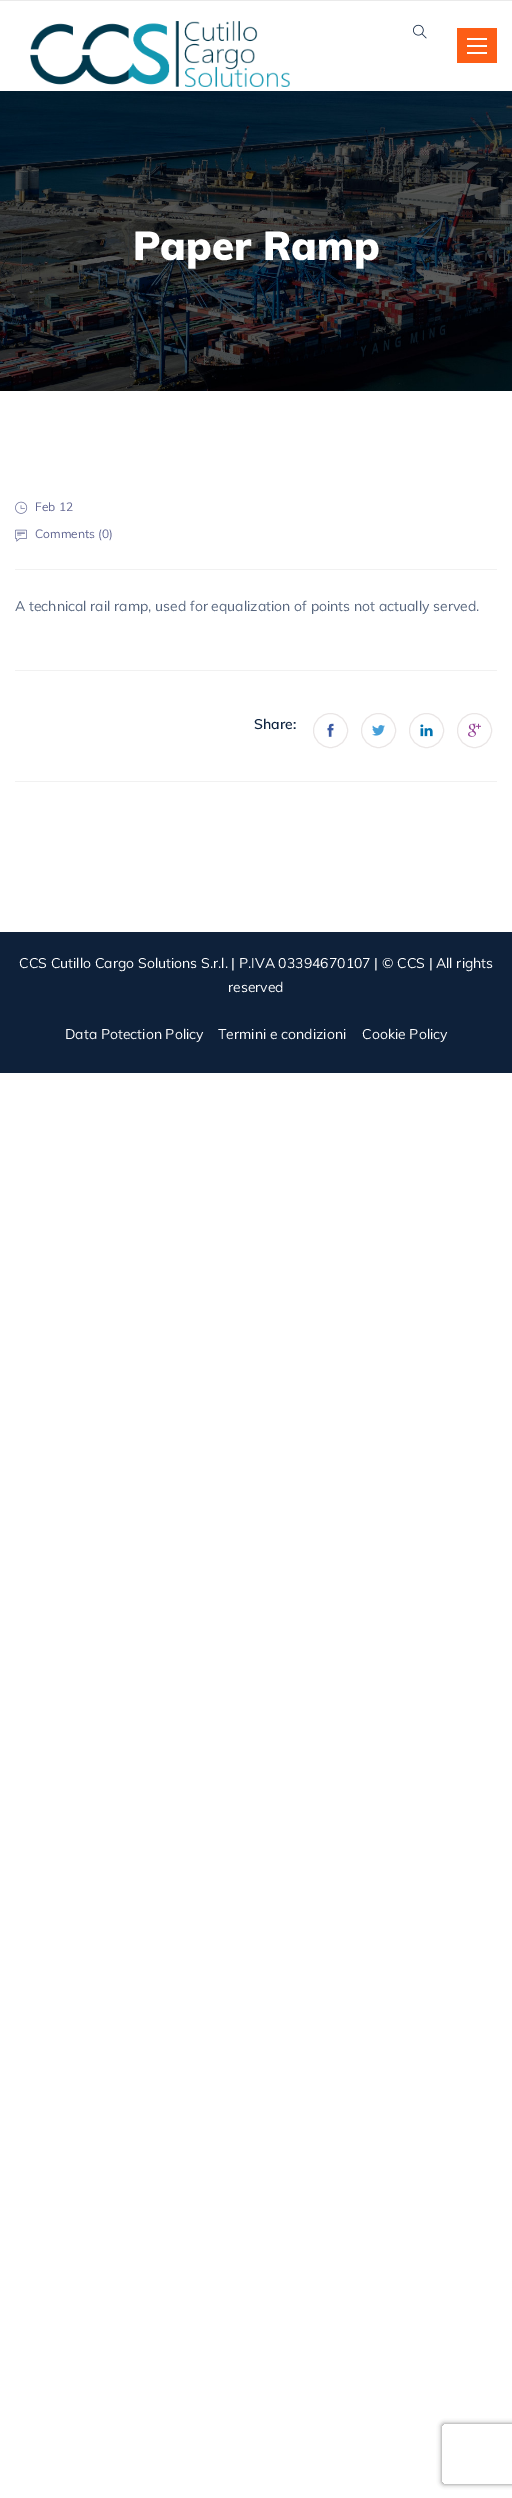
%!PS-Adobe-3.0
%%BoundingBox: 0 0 512 2498
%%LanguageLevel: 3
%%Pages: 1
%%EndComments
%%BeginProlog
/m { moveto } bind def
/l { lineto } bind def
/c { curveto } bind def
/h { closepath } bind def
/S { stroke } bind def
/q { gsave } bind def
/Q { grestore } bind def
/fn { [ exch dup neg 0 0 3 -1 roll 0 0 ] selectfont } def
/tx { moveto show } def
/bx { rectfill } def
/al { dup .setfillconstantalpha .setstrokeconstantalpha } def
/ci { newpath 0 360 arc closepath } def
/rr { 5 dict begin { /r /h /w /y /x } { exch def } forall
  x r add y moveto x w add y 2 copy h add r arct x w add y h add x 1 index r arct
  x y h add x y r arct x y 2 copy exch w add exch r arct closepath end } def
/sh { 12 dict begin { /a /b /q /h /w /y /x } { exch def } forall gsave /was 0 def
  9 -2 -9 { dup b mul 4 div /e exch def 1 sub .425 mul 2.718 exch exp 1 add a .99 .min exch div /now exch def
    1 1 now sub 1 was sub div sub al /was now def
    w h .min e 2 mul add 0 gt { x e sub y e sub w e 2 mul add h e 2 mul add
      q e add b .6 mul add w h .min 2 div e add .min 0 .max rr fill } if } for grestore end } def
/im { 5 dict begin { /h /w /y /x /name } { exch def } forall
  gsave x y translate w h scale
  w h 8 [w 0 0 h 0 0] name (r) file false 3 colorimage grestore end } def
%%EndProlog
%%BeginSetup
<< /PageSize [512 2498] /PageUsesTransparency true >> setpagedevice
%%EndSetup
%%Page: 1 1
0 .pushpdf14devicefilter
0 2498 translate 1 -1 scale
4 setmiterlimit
1 setgray
0 0 512 2498 bx
0.918 setgray
0 0 512 1 bx
(image0.raw) 30 21 260 66 im
0.992 0.369 0.086 setrgbcolor
457 28 40 35 bx
1 setgray
467 38 20 2 bx
467 45 20 2 bx
467 52 20 2 bx
(image1.raw) 413 24 14 15 im
(image2.raw) 0 91 512 300 im
/Muli-Black 40 fn
(Paper Ramp) 133 260 tx
0.945 setgray
15 569 482 1 bx
(image3.raw) 15 501 13 13 im
/Muli-Regular 12 fn
0.388 0.408 0.576 setrgbcolor
(Feb 12) 35 511 tx
(image4.raw) 15 529 12 13 im
(Comments \(0\)) 35 538 tx
/Muli-Regular 14 fn
0.341 0.4 0.494 setrgbcolor
(A technical rail ramp, used for equalization of points not actually served.) 15 611 tx
0.945 setgray
15 670 482 1 bx
15 781 482 1 bx
/Muli-SemiBold 14 fn
0.063 0.145 0.255 setrgbcolor
(Share:) 254 729 tx
0.918 0.902 0.902 setrgbcolor
330.5 730.5 17 ci S
(image5.raw) 327 723 7 14 im
378.5 730.5 17 ci S
(image6.raw) 372 725 13 11 im
426.5 730.5 17 ci S
(image7.raw) 420 724 13 13 im
474.5 730.5 17 ci S
(image8.raw) 468 723 13 14 im
0.055 0.129 0.227 setrgbcolor
0 932 512 141 bx
/Muli-Regular 14 fn
1 setgray
(CCS Cutillo Cargo Solutions S.r.l. | P.IVA 03394670107 | © CCS | All rights) 19 968 tx
(reserved) 228 992 tx
(Data Potection Policy) 65 1039 tx
(Termini e condizioni) 218 1039 tx
(Cookie Policy) 362 1039 tx
q
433 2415 m 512 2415 l 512 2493 l 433 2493 l h 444 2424 m 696 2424 l 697 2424 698 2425 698 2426 c 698 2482 l 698 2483 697 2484 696 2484 c 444 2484 l 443 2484 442 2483 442 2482 c 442 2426 l 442 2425 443 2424 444 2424 c h eoclip newpath
0.502 setgray
442 2424 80 60 2 2.5 1 sh
Q
.poppdf14devicefilter showpage
%%EOF
